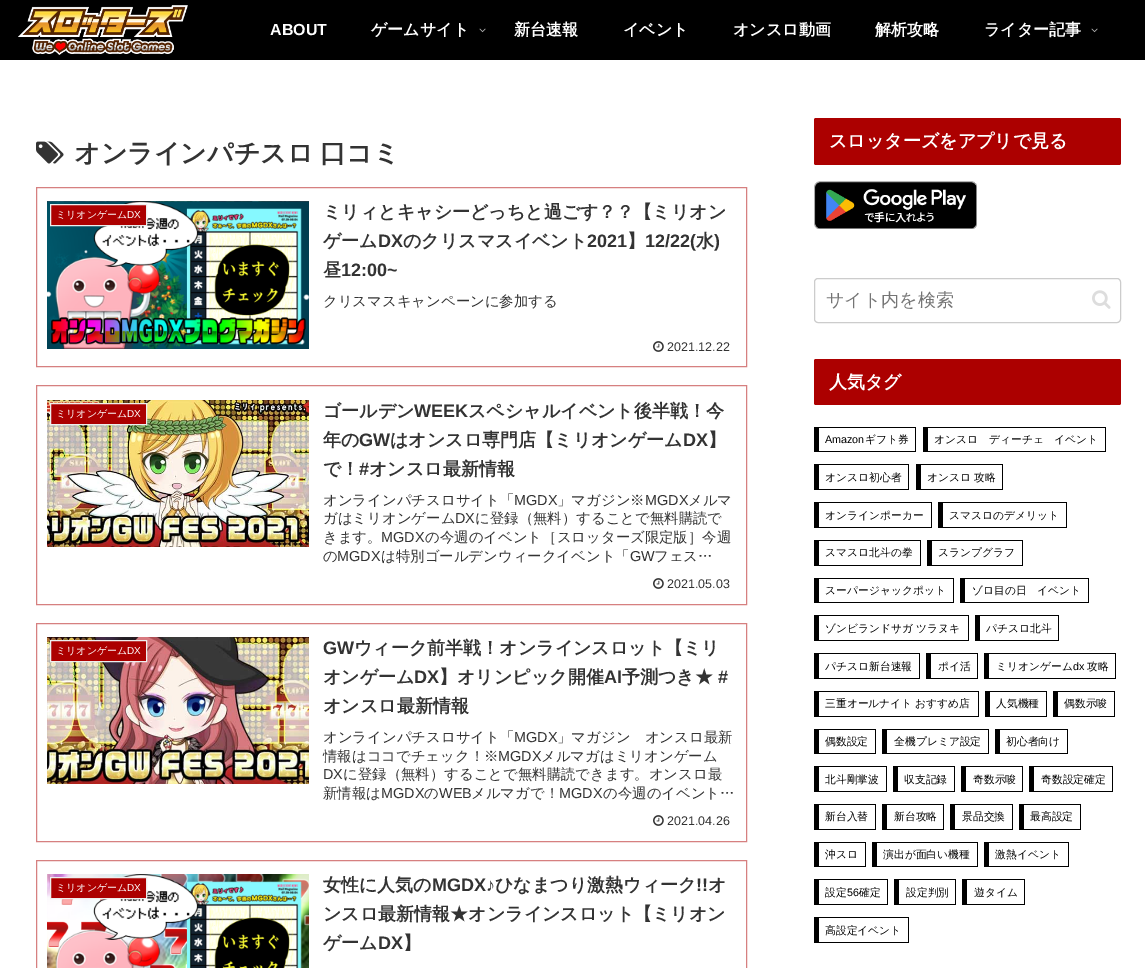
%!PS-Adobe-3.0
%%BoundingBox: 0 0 1145 968
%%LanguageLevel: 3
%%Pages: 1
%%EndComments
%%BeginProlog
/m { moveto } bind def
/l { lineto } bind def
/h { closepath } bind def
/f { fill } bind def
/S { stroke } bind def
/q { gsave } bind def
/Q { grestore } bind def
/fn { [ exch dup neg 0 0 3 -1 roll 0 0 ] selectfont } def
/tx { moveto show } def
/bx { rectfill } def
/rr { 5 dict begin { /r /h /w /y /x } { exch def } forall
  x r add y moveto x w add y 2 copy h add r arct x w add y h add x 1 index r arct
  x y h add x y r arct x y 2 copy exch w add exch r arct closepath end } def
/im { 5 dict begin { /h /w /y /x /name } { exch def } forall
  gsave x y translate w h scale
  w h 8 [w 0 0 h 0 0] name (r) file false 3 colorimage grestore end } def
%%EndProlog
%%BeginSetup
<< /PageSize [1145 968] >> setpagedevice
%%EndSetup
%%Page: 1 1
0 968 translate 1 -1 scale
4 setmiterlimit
1 setgray
0 0 1145 968 bx
0 setgray
0 0 1145 60 bx
(image0.raw) 18 5 170 50 im
/LiberationSans-Bold 16 fn
1 setgray
(ABOUT) 270 35 tx
/WenQuanYiZenHei-Bold 16 fn
(ゲームサイト) 371 35 tx
(image1.raw) 479 28 7 5 im
(新台速報) 514 35 tx
(イベント) 623 35 tx
(オンスロ動画) 733 35 tx
(解析攻略) 875 35 tx
(ライター記事) 984 35 tx
(image1.raw) 1091 28 7 5 im
(image2.raw) 36 141 28 23 im
/WenQuanYiZenHei-Bold 26 fn
0.2 setgray
74 162 m -1 0 32 (オンラインパチスロ 口コミ) widthshow
0.839 0.502 0.502 setrgbcolor
36.5 187.5 710 179 rectstroke
(image3.raw) 47 201 262 148 im
0.675 0 0 setrgbcolor
50.5 204.5 m 146.5 204.5 l 146.5 225.5 l 50.5 225.5 l h q f Q
0.933 setgray
S
/WenQuanYiZenHei-Medium 10 fn
1 setgray
(ミリオンゲーム) 56 218 tx
/LiberationSans-Regular 10 fn
(DX) 127 218 tx
/WenQuanYiZenHei-Bold 18 fn
0.2 setgray
(ミリィとキャシーどっちと過ごす？？【ミリオン) 323 218 tx
(ゲーム) 323 247 tx
/LiberationSans-Bold 18 fn
(DX) 378 247 tx
/WenQuanYiZenHei-Bold 18 fn
(のクリスマスイベント) 403 247 tx
/LiberationSans-Bold 18 fn
(2021) 587 247 tx
/WenQuanYiZenHei-Bold 18 fn
(】) 627 247 tx
/LiberationSans-Bold 18 fn
(12/22\() 645 247 tx
/WenQuanYiZenHei-Bold 18 fn
(水) 696 247 tx
/LiberationSans-Bold 18 fn
(\)) 714 247 tx
/WenQuanYiZenHei-Bold 18 fn
(昼) 323 276 tx
/LiberationSans-Bold 18 fn
(12:00~) 341 276 tx
/WenQuanYiZenHei-Medium 14.4 fn
(クリスマスキャンペーンに参加する) 323 306 tx
(image4.raw) 653 341 11 11 im
/LiberationSans-Regular 12.5 fn
(2021.12.22) 667 351 tx
0.839 0.502 0.502 setrgbcolor
36.5 385.5 710 219 rectstroke
(image5.raw) 47 400 262 147 im
0.675 0 0 setrgbcolor
50.5 403.5 m 146.5 403.5 l 146.5 424.5 l 50.5 424.5 l h q f Q
0.933 setgray
S
/WenQuanYiZenHei-Medium 10 fn
1 setgray
(ミリオンゲーム) 56 417 tx
/LiberationSans-Regular 10 fn
(DX) 127 417 tx
/WenQuanYiZenHei-Bold 18 fn
0.2 setgray
(ゴールデン) 323 417 tx
/LiberationSans-Bold 18 fn
(WEEK) 414 417 tx
/WenQuanYiZenHei-Bold 18 fn
(スペシャルイベント後半戦！今) 468 417 tx
(年の) 323 446 tx
/LiberationSans-Bold 18 fn
(GW) 359 446 tx
/WenQuanYiZenHei-Bold 18 fn
(はオンスロ専門店【ミリオンゲーム) 390 446 tx
/LiberationSans-Bold 18 fn
(DX) 683 446 tx
/WenQuanYiZenHei-Bold 18 fn
(】) 708 446 tx
(で！) 323 475 tx
/LiberationSans-Bold 18 fn
(#) 359 475 tx
/WenQuanYiZenHei-Bold 18 fn
(オンスロ最新情報) 369 475 tx
/WenQuanYiZenHei-Medium 14.4 fn
(オンラインパチスロサイト「) 323 505 tx
/LiberationSans-Regular 14.4 fn
(MGDX) 514 505 tx
/WenQuanYiZenHei-Medium 14.4 fn
(」マガジン※) 557 505 tx
/LiberationSans-Regular 14.4 fn
(MGDX) 645 505 tx
/WenQuanYiZenHei-Medium 14.4 fn
(メルマ) 688 505 tx
(ガはミリオンゲーム) 323 523 tx
/LiberationSans-Regular 14.4 fn
(DX) 455 523 tx
/WenQuanYiZenHei-Medium 14.4 fn
(に登録（無料）することで無料購読で) 475 523 tx
(きます。) 323 542 tx
/LiberationSans-Regular 14.4 fn
(MGDX) 381 542 tx
/WenQuanYiZenHei-Medium 14.4 fn
(の今週のイベント［スロッターズ限定版］今週) 425 542 tx
(の) 323 561 tx
/LiberationSans-Regular 14.4 fn
(MGDX) 337 561 tx
/WenQuanYiZenHei-Medium 14.4 fn
(は特別ゴールデンウィークイベント「) 381 561 tx
/LiberationSans-Regular 14.4 fn
(GW) 630 561 tx
/WenQuanYiZenHei-Medium 14.4 fn
(フェス…) 654 561 tx
(image4.raw) 653 578 11 11 im
/LiberationSans-Regular 12.5 fn
(2021.05.03) 667 588 tx
0.839 0.502 0.502 setrgbcolor
36.5 623.5 710 218 rectstroke
(image6.raw) 47 637 262 147 im
0.675 0 0 setrgbcolor
50.5 640.5 m 146.5 640.5 l 146.5 661.5 l 50.5 661.5 l h q f Q
0.933 setgray
S
/WenQuanYiZenHei-Medium 10 fn
1 setgray
(ミリオンゲーム) 56 654 tx
/LiberationSans-Regular 10 fn
(DX) 127 654 tx
/LiberationSans-Bold 18 fn
0.2 setgray
(GW) 323 654 tx
/WenQuanYiZenHei-Bold 18 fn
(ウィーク前半戦！オンラインスロット【ミリ) 354 654 tx
(オンゲーム) 323 683 tx
/LiberationSans-Bold 18 fn
(DX) 414 683 tx
/WenQuanYiZenHei-Bold 18 fn
(】オリンピック開催) 439 683 tx
/LiberationSans-Bold 18 fn
(AI) 604 683 tx
/WenQuanYiZenHei-Bold 18 fn
(予測つき★) 622 683 tx
/LiberationSans-Bold 18 fn
(#) 718 683 tx
/WenQuanYiZenHei-Bold 18 fn
(オンスロ最新情報) 323 712 tx
/WenQuanYiZenHei-Medium 14.4 fn
(オンラインパチスロサイト「) 323 742 tx
/LiberationSans-Regular 14.4 fn
(MGDX) 514 742 tx
/WenQuanYiZenHei-Medium 14.4 fn
(」マガジン　オンスロ最新) 557 742 tx
(情報はココでチェック！※) 323 761 tx
/LiberationSans-Regular 14.4 fn
(MGDX) 498 761 tx
/WenQuanYiZenHei-Medium 14.4 fn
(メルマガはミリオンゲーム) 541 761 tx
/LiberationSans-Regular 14.4 fn
(DX) 323 779 tx
/WenQuanYiZenHei-Medium 14.4 fn
(に登録（無料）することで無料購読できます。オンスロ最) 343 779 tx
(新情報は) 323 798 tx
/LiberationSans-Regular 14.4 fn
(MGDX) 381 798 tx
/WenQuanYiZenHei-Medium 14.4 fn
(の) 424 798 tx
/LiberationSans-Regular 14.4 fn
(WEB) 439 798 tx
/WenQuanYiZenHei-Medium 14.4 fn
(メルマガで！) 471 798 tx
/LiberationSans-Regular 14.4 fn
(MGDX) 559 798 tx
/WenQuanYiZenHei-Medium 14.4 fn
(の今週のイベント…) 603 798 tx
(image4.raw) 653 815 11 11 im
/LiberationSans-Regular 12.5 fn
(2021.04.26) 667 825 tx
0.839 0.502 0.502 setrgbcolor
36.5 860.5 710 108 rectstroke
(image7.raw) 47 874 262 94 im
0.675 0 0 setrgbcolor
50.5 877.5 m 146.5 877.5 l 146.5 898.5 l 50.5 898.5 l h q f Q
0.933 setgray
S
/WenQuanYiZenHei-Medium 10 fn
1 setgray
(ミリオンゲーム) 56 891 tx
/LiberationSans-Regular 10 fn
(DX) 127 891 tx
/WenQuanYiZenHei-Bold 18 fn
0.2 setgray
(女性に人気の) 323 891 tx
/LiberationSans-Bold 18 fn
(MGDX♪) 432 891 tx
/WenQuanYiZenHei-Bold 18 fn
(ひなまつり激熱ウィーク) 495 891 tx
/LiberationSans-Bold 18 fn
(!!) 696 891 tx
/WenQuanYiZenHei-Bold 18 fn
(オ) 708 891 tx
(ンスロ最新情報★オンラインスロット【ミリオン) 323 920 tx
(ゲーム) 323 949 tx
/LiberationSans-Bold 18 fn
(DX) 378 949 tx
/WenQuanYiZenHei-Bold 18 fn
(】) 403 949 tx
0.675 0 0 setrgbcolor
814 118 307 47 2 rr f
1 setgray
(スロッターズをアプリで見る) 829 147 tx
(image8.raw) 814 181 163 48 im
0.8 setgray
814.5 278.5 306 44 3.5 rr S
/WenQuanYiZenHei-Medium 18 fn
0.459 setgray
(サイト内を検索) 826 306 tx
(image9.raw) 1092 290 19 19 im
0.675 0 0 setrgbcolor
814 359 307 46 2 rr f
/WenQuanYiZenHei-Bold 18 fn
1 setgray
(人気タグ) 829 388 tx
0 setgray
814 427 102 1 bx
915 427 1 25 bx
814 451 102 1 bx
814 427 5 25 bx
/LiberationSans-Regular 10.75 fn
(Amazon) 825 443 tx
/WenQuanYiZenHei-Medium 10.75 fn
(ギフト券) 865 443 tx
923 427 183 1 bx
1105 427 1 25 bx
923 451 183 1 bx
923 427 5 25 bx
(オンスロ　ディーチェ　イベント) 934 443 tx
814 464 95 1 bx
908 464 1 26 bx
814 489 95 1 bx
814 464 5 26 bx
(オンスロ初心者) 825 481 tx
916 464 87 1 bx
1002 464 1 26 bx
916 489 87 1 bx
916 464 5 26 bx
(オンスロ 攻略) 927 481 tx
814 502 118 1 bx
931 502 1 26 bx
814 527 118 1 bx
814 502 5 26 bx
(オンラインポーカー) 825 519 tx
938 502 129 1 bx
1066 502 1 26 bx
938 527 129 1 bx
938 502 5 26 bx
(スマスロのデメリット) 949 519 tx
814 540 107 1 bx
920 540 1 26 bx
814 565 107 1 bx
814 540 5 26 bx
(スマスロ北斗の拳) 825 556 tx
927 540 96 1 bx
1022 540 1 26 bx
927 565 96 1 bx
927 540 5 26 bx
(スランプグラフ) 938 556 tx
814 578 140 1 bx
953 578 1 25 bx
814 602 140 1 bx
814 578 5 25 bx
(スーパージャックポット) 825 594 tx
960 578 129 1 bx
1088 578 1 25 bx
960 602 129 1 bx
960 578 5 25 bx
(ゾロ目の日　イベント) 972 594 tx
814 615 155 1 bx
968 615 1 26 bx
814 640 155 1 bx
814 615 5 26 bx
(ゾンビランドサガ ツラヌキ) 825 632 tx
975 615 84 1 bx
1058 615 1 26 bx
975 640 84 1 bx
975 615 5 26 bx
(パチスロ北斗) 986 632 tx
814 653 106 1 bx
919 653 1 26 bx
814 678 106 1 bx
814 653 5 26 bx
(パチスロ新台速報) 825 670 tx
926 653 52 1 bx
977 653 1 26 bx
926 678 52 1 bx
926 653 5 26 bx
(ポイ活) 938 670 tx
984 653 132 1 bx
1115 653 1 26 bx
984 678 132 1 bx
984 653 5 26 bx
(ミリオンゲーム) 996 670 tx
/LiberationSans-Regular 10.75 fn
(dx) 1073 670 tx
/WenQuanYiZenHei-Medium 10.75 fn
(攻略) 1087 670 tx
814 691 165 1 bx
978 691 1 26 bx
814 716 165 1 bx
814 691 5 26 bx
(三重オールナイト おすすめ店) 825 707 tx
985 691 62 1 bx
1046 691 1 26 bx
985 716 62 1 bx
985 691 5 26 bx
(人気機種) 996 707 tx
1053 691 62 1 bx
1114 691 1 26 bx
1053 716 62 1 bx
1053 691 5 26 bx
(偶数示唆) 1064 707 tx
814 729 62 1 bx
875 729 1 25 bx
814 753 62 1 bx
814 729 5 25 bx
(偶数設定) 825 745 tx
882 729 107 1 bx
988 729 1 25 bx
882 753 107 1 bx
882 729 5 25 bx
(全機プレミア設定) 894 745 tx
995 729 73 1 bx
1067 729 1 25 bx
995 753 73 1 bx
995 729 5 25 bx
(初心者向け) 1006 745 tx
814 766 73 1 bx
886 766 1 26 bx
814 791 73 1 bx
814 766 5 26 bx
(北斗剛掌波) 825 783 tx
893 766 62 1 bx
954 766 1 26 bx
893 791 62 1 bx
893 766 5 26 bx
(収支記録) 904 783 tx
961 766 62 1 bx
1022 766 1 26 bx
961 791 62 1 bx
961 766 5 26 bx
(奇数示唆) 973 783 tx
1029 766 84 1 bx
1112 766 1 26 bx
1029 791 84 1 bx
1029 766 5 26 bx
(奇数設定確定) 1041 783 tx
814 804 62 1 bx
875 804 1 26 bx
814 829 62 1 bx
814 804 5 26 bx
(新台入替) 825 820 tx
882 804 62 1 bx
943 804 1 26 bx
882 829 62 1 bx
882 804 5 26 bx
(新台攻略) 894 820 tx
950 804 63 1 bx
1012 804 1 26 bx
950 829 63 1 bx
950 804 5 26 bx
(景品交換) 962 820 tx
1019 804 62 1 bx
1080 804 1 26 bx
1019 829 62 1 bx
1019 804 5 26 bx
(最高設定) 1030 820 tx
814 842 52 1 bx
865 842 1 25 bx
814 866 52 1 bx
814 842 5 25 bx
(沖スロ) 825 858 tx
872 842 106 1 bx
977 842 1 25 bx
872 866 106 1 bx
872 842 5 25 bx
(演出が面白い機種) 883 858 tx
984 842 85 1 bx
1068 842 1 25 bx
984 866 85 1 bx
984 842 5 25 bx
(激熱イベント) 995 858 tx
814 879 74 1 bx
887 879 1 26 bx
814 904 74 1 bx
814 879 5 26 bx
(設定) 825 896 tx
/LiberationSans-Regular 10.75 fn
(56) 847 896 tx
/WenQuanYiZenHei-Medium 10.75 fn
(確定) 859 896 tx
894 879 62 1 bx
955 879 1 26 bx
894 904 62 1 bx
894 879 5 26 bx
(設定判別) 906 896 tx
962 879 63 1 bx
1024 879 1 26 bx
962 904 63 1 bx
962 879 5 26 bx
(遊タイム) 974 896 tx
814 917 95 1 bx
908 917 1 26 bx
814 942 95 1 bx
814 917 5 26 bx
(高設定イベント) 825 934 tx
showpage
%%EOF
